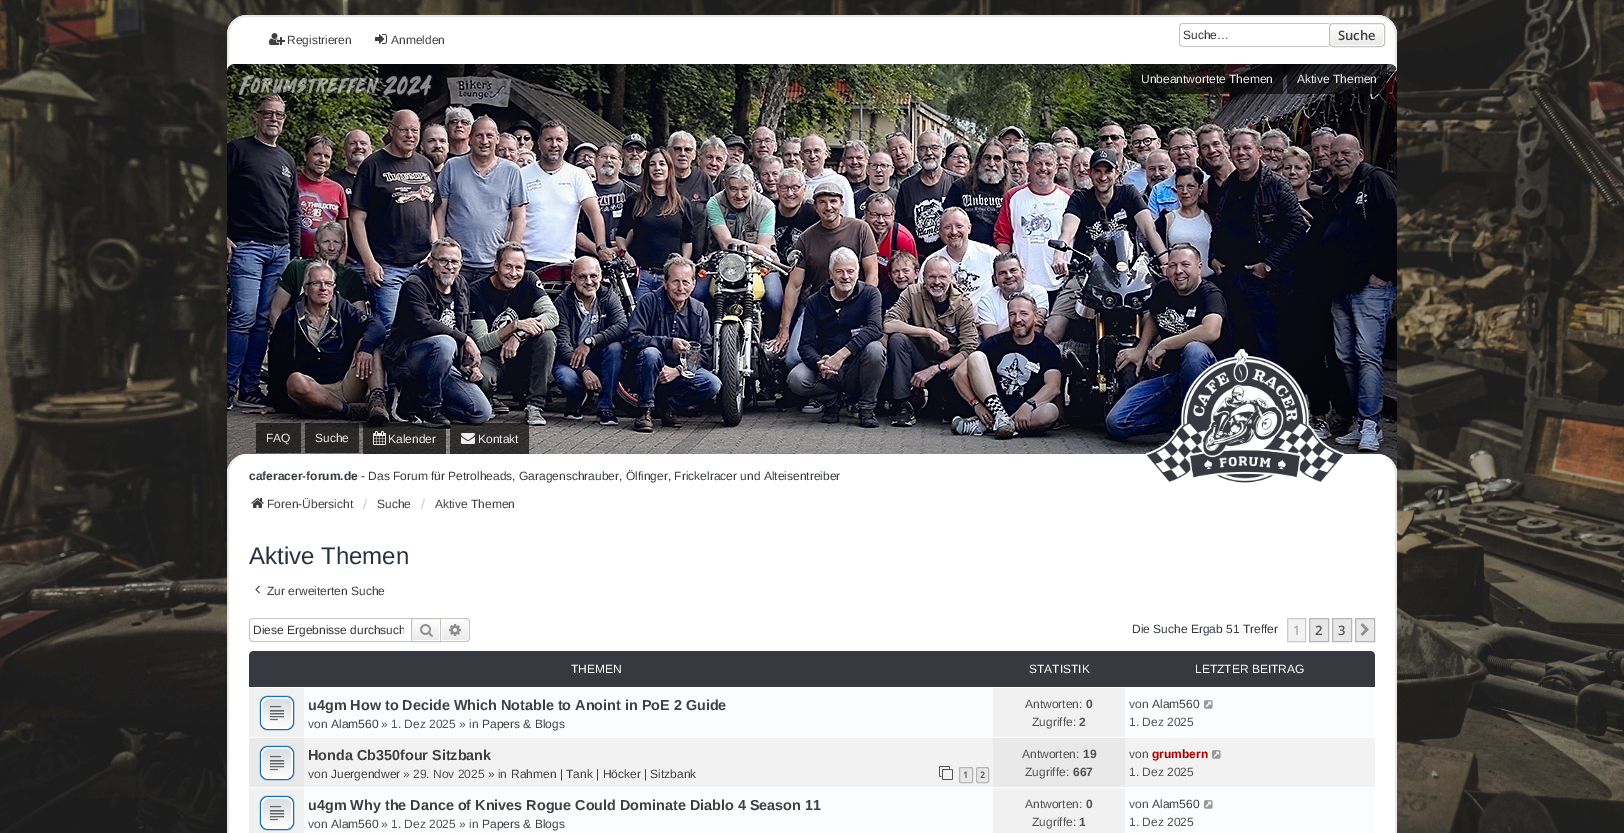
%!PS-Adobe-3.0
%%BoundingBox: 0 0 1624 833
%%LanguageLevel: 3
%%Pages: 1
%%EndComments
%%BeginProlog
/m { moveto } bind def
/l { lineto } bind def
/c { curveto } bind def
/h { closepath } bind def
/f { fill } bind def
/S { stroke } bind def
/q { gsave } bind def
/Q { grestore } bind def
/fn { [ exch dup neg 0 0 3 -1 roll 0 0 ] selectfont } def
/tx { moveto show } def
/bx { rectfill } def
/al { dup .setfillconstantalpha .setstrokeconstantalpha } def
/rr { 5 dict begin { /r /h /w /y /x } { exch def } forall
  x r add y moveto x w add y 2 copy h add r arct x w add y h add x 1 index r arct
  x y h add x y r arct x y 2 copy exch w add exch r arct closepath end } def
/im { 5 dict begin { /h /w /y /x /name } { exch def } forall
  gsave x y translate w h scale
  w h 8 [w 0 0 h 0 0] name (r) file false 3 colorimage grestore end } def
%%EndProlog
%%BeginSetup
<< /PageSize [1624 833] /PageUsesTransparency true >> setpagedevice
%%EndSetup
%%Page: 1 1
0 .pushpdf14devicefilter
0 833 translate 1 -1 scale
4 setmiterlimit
1 setgray
0 0 1624 833 bx
(image0.raw) 0 0 1624 833 im
247 15 m 1377 15 l 1388 15 1397 24 1397 35 c 1397 64 l 227 64 l 227 35 l 227 24 236 15 247 15 c h f
0.906 setgray
247 15 m 1377 15 l 1388 15 1397 24 1397 35 c 1397 64 l 227 64 l 227 35 l 227 24 236 15 247 15 c h 247 17 m 1377 17 l 1387 17 1395 25 1395 35 c 1395 64 l 229 64 l 229 35 l 229 25 237 17 247 17 c h eofill
(image1.raw) 269 33 16 12 im
/LiberationSans-Regular 12 fn
0.247 setgray
(Registrieren) 287 44 tx
(image2.raw) 375 34 12 10 im
(Anmelden) 391 44 tx
0.78 0.765 0.749 setrgbcolor
1183 23 m 1329 23 l 1329 47 l 1183 47 l 1181 47 1179 45 1179 43 c 1179 27 l 1179 25 1181 23 1183 23 c h 1183 24 m 1329 24 l 1329 46 l 1183 46 l 1181 46 1180 45 1180 43 c 1180 27 l 1180 25 1181 24 1183 24 c h eofill
0.2 setgray
(Suche…) 1183 39 tx
q
1329 23 56 24 4 rr clip newpath
q 1329 24 m 1385 24 l 1385 46 l 1329 46 l h clip newpath
<< /ShadingType 2 /ColorSpace /DeviceRGB /Coords [1357 24 1357 46] /Extend [true true] /Function << /FunctionType 2 /Domain [0 1] /C0 [1 1 1] /C1 [0.914 0.914 0.914] /N 1 >> >> shfill Q
Q
1 setgray
1330.5 24.5 53 21 2.5 rr S
0.78 0.765 0.749 setrgbcolor
1329.5 23.5 55 23 3.5 rr S
/OpenSans-SemiBold 13 fn
0.247 setgray
(Suche) 1338 40 tx
1 setgray
227 64 1170 410 bx
(image3.raw) 227 64 1170 407 im
0.7 al
0.039 setgray
1131 64 152 30 bx
/LiberationSans-Regular 12 fn
1 al
0.933 setgray
(Unbeantwortete Themen) 1141 83 tx
0.7 al
0.039 setgray
1287 64 100 30 bx
1 al
0.933 setgray
(Aktive Themen) 1297 83 tx
0.7 al
0.039 setgray
256 423 45 30 bx
1 al
0.933 setgray
(FAQ) 266 442 tx
0.7 al
0.039 setgray
305 423 54 30 bx
1 al
0.933 setgray
(Suche) 315 442 tx
0.7 al
0.039 setgray
363 423 83 31 bx
1 al
(image4.raw) 373 431 13 14 im
0.933 setgray
(Kalender) 388 443 tx
0.7 al
0.039 setgray
450 423 79 31 bx
1 al
(image5.raw) 461 433 14 11 im
0.933 setgray
(Kontakt) 478 443 tx
1 setgray
227 454 1170 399 20 rr f
0.906 setgray
247 454 m 1377 454 l 1388 454 1397 463 1397 474 c 1397 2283 l 1397 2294 1388 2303 1377 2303 c 247 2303 l 236 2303 227 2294 227 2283 c 227 474 l 227 463 236 454 247 454 c h 247 454 m 1377 454 l 1387 454 1395 463 1395 474 c 1395 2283 l 1395 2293 1387 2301 1377 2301 c 247 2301 l 237 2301 229 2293 229 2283 c 229 474 l 229 463 237 454 247 454 c h eofill
/LiberationSans-Bold 12 fn
0.212 0.227 0.251 setrgbcolor
(caferacer-forum.de) 249 480 tx
/LiberationSans-Regular 12 fn
(- Das Forum für Petrolheads, Garagenschrauber, Ölfinger, Frickelracer und Alteisentreiber) 361 480 tx
(image6.raw) 1145 349 200 134 im
(image7.raw) 251 498 13 10 im
0.247 setgray
(Foren-Übersicht) 267 508 tx
/LiberationSans-Regular 14 fn
0.792 setgray
(/) 363 509 tx
/LiberationSans-Regular 12 fn
0.247 setgray
(Suche) 377 508 tx
/LiberationSans-Regular 14 fn
0.792 setgray
(/) 421 509 tx
/LiberationSans-Regular 12 fn
0.247 setgray
(Aktive Themen) 435 508 tx
/LiberationSans-Regular 24 fn
0.157 0.192 0.247 setrgbcolor
(Aktive Themen) 249 564 tx
(image8.raw) 255 585 5 9 im
/LiberationSans-Regular 12 fn
0.247 setgray
(Zur erweiterten Suche) 267 595 tx
0.78 0.765 0.749 setrgbcolor
253 618 m 411 618 l 411 642 l 253 642 l 251 642 249 640 249 638 c 249 622 l 249 620 251 618 253 618 c h 253 619 m 411 619 l 411 641 l 253 641 l 251 641 250 640 250 638 c 250 622 l 250 620 251 619 253 619 c h eofill
q
253 623 151 14 rectclip
0.2 setgray
(Diese Ergebnisse durchsuch) 253 634 tx
Q
q 413 622 m 439 622 l 439 640 l 413 640 l h clip newpath
<< /ShadingType 2 /ColorSpace /DeviceRGB /Coords [426 619 426 641] /Extend [true true] /Function << /FunctionType 2 /Domain [0 1] /C0 [1 1 1] /C1 [0.914 0.914 0.914] /N 1 >> >> shfill Q
411.5 618.5 29 23 rectstroke
(image9.raw) 420 624 13 13 im
q 441.5 619.5 m 466 619.5 l 467.5 619.5 468.5 620.5 468.5 622 c 468.5 638 l 468.5 639.5 467.5 640.5 466 640.5 c 441.5 640.5 l h clip newpath
<< /ShadingType 2 /ColorSpace /DeviceRGB /Coords [455 619 455 641] /Extend [true true] /Function << /FunctionType 2 /Domain [0 1] /C0 [1 1 1] /C1 [0.914 0.914 0.914] /N 1 >> >> shfill Q
1 setgray
441.5 619.5 m 466 619.5 l 467.5 619.5 468.5 620.5 468.5 622 c 468.5 638 l 468.5 639.5 467.5 640.5 466 640.5 c 441.5 640.5 l h S
0.78 0.765 0.749 setrgbcolor
441 618 m 466 618 l 468 618 470 620 470 622 c 470 638 l 470 640 468 642 466 642 c 441 642 l h 441 619 m 466 619 l 467.5 619 469 620.5 469 622 c 469 638 l 469 639.5 467.5 641 466 641 c 441 641 l h eofill
(image10.raw) 449 624 12 12 im
0.212 0.227 0.251 setrgbcolor
(Die Suche Ergab 51 Treffer) 1132 633 tx
0.949 setgray
1287.5 618.5 m 1305.5 618.5 l 1305.5 641.5 l 1287.5 641.5 l h q f Q
0.792 setgray
S
/OpenSans-Regular 13 fn
0.584 setgray
(1) 1293 635 tx
0.906 setgray
1309.5 618.5 m 1328.5 618.5 l 1328.5 641.5 l 1309.5 641.5 l h q f Q
0.71 setgray
S
/OpenSans-SemiBold 13 fn
0.322 setgray
(2) 1315 635 tx
0.906 setgray
1332.5 618.5 m 1351.5 618.5 l 1351.5 641.5 l 1332.5 641.5 l h q f Q
0.71 setgray
S
0.322 setgray
(3) 1338 635 tx
0.906 setgray
1355.5 618.5 m 1374.5 618.5 l 1374.5 641.5 l 1355.5 641.5 l h q f Q
0.71 setgray
S
(image11.raw) 1360 623 9 13 im
0.212 0.227 0.251 setrgbcolor
254 651 m 1370 651 l 1373 651 1375 653 1375 656 c 1375 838 l 249 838 l 249 656 l 249 653 251 651 254 651 c h f
/LiberationSans-Regular 12 fn
1 setgray
(THEMEN) 571 673 tx
(STATISTIK) 1029 673 tx
(LETZTER BEITRAG) 1195 673 tx
0.98 0.988 0.996 setrgbcolor
304 688 1071 145 bx
1 setgray
249 687 1126 1 bx
0.945 setgray
249 688 55 49 bx
(image12.raw) 259 695 36 36 im
/LiberationSans-Bold 14.4 fn
0.247 setgray
(u4gm How to Decide Which Notable to Anoint in PoE 2 Guide) 308 710 tx
/LiberationSans-Regular 12 fn
0.322 setgray
(von) 308 728 tx
0.247 setgray
(Alam560) 331 728 tx
0.322 setgray
(» 1. Dez 2025 » in) 381 728 tx
0.247 setgray
(Papers & Blogs) 482 728 tx
0.945 setgray
993 688 132 49 bx
0.322 setgray
(Antworten:) 1025 708 tx
/LiberationSans-Bold 12 fn
(0) 1086 708 tx
/LiberationSans-Regular 12 fn
(Zugriffe:) 1032 726 tx
/LiberationSans-Bold 12 fn
(2) 1079 726 tx
/LiberationSans-Regular 12 fn
(von) 1129 708 tx
0.247 setgray
(Alam560) 1152 708 tx
(image13.raw) 1204 700 9 9 im
0.322 setgray
(1. Dez 2025) 1129 726 tx
0.949 setgray
304 738 1071 49 bx
1 setgray
249 737 1126 1 bx
0.914 setgray
249 738 55 49 bx
(image14.raw) 259 745 36 36 im
/LiberationSans-Bold 14.4 fn
0.247 setgray
(Honda Cb350four Sitzbank) 308 760 tx
/LiberationSans-Regular 12 fn
0.322 setgray
(von) 308 778 tx
0.247 setgray
(Juergendwer) 331 778 tx
0.322 setgray
(» 29. Nov 2025 » in) 403 778 tx
0.247 setgray
(Rahmen | Tank | Höcker | Sitzbank) 511 778 tx
(image15.raw) 939 766 14 14 im
0.906 setgray
959.5 767.5 13 15 1.5 rr q f Q
0.71 setgray
S
/OpenSans-SemiBold 9 fn
0.322 setgray
(1) 963 778 tx
0.906 setgray
976.5 767.5 12 15 1.5 rr q f Q
0.71 setgray
S
0.322 setgray
(2) 980 778 tx
0.914 setgray
993 738 132 49 bx
/LiberationSans-Regular 12 fn
0.322 setgray
(Antworten:) 1022 758 tx
/LiberationSans-Bold 12 fn
(19) 1083 758 tx
/LiberationSans-Regular 12 fn
(Zugriffe:) 1025 776 tx
/LiberationSans-Bold 12 fn
(667) 1073 776 tx
/LiberationSans-Regular 12 fn
(von) 1129 758 tx
/LiberationSans-Bold 12 fn
0.667 0 0 setrgbcolor
(grumbern) 1152 758 tx
(image16.raw) 1212 750 9 9 im
/LiberationSans-Regular 12 fn
0.322 setgray
(1. Dez 2025) 1129 776 tx
1 setgray
249 787 1126 1 bx
0.945 setgray
249 788 55 45 bx
(image17.raw) 259 795 36 36 im
/LiberationSans-Bold 14.4 fn
0.247 setgray
(u4gm Why the Dance of Knives Rogue Could Dominate Diablo 4 Season 11) 308 810 tx
/LiberationSans-Regular 12 fn
0.322 setgray
(von) 308 828 tx
0.247 setgray
(Alam560) 331 828 tx
0.322 setgray
(» 1. Dez 2025 » in) 381 828 tx
0.247 setgray
(Papers & Blogs) 482 828 tx
0.945 setgray
993 788 132 45 bx
0.322 setgray
(Antworten:) 1025 808 tx
/LiberationSans-Bold 12 fn
(0) 1086 808 tx
/LiberationSans-Regular 12 fn
(Zugriffe:) 1032 826 tx
/LiberationSans-Bold 12 fn
(1) 1079 826 tx
/LiberationSans-Regular 12 fn
(von) 1129 808 tx
0.247 setgray
(Alam560) 1152 808 tx
(image13.raw) 1204 800 9 9 im
0.322 setgray
(1. Dez 2025) 1129 826 tx
.poppdf14devicefilter showpage
%%EOF
